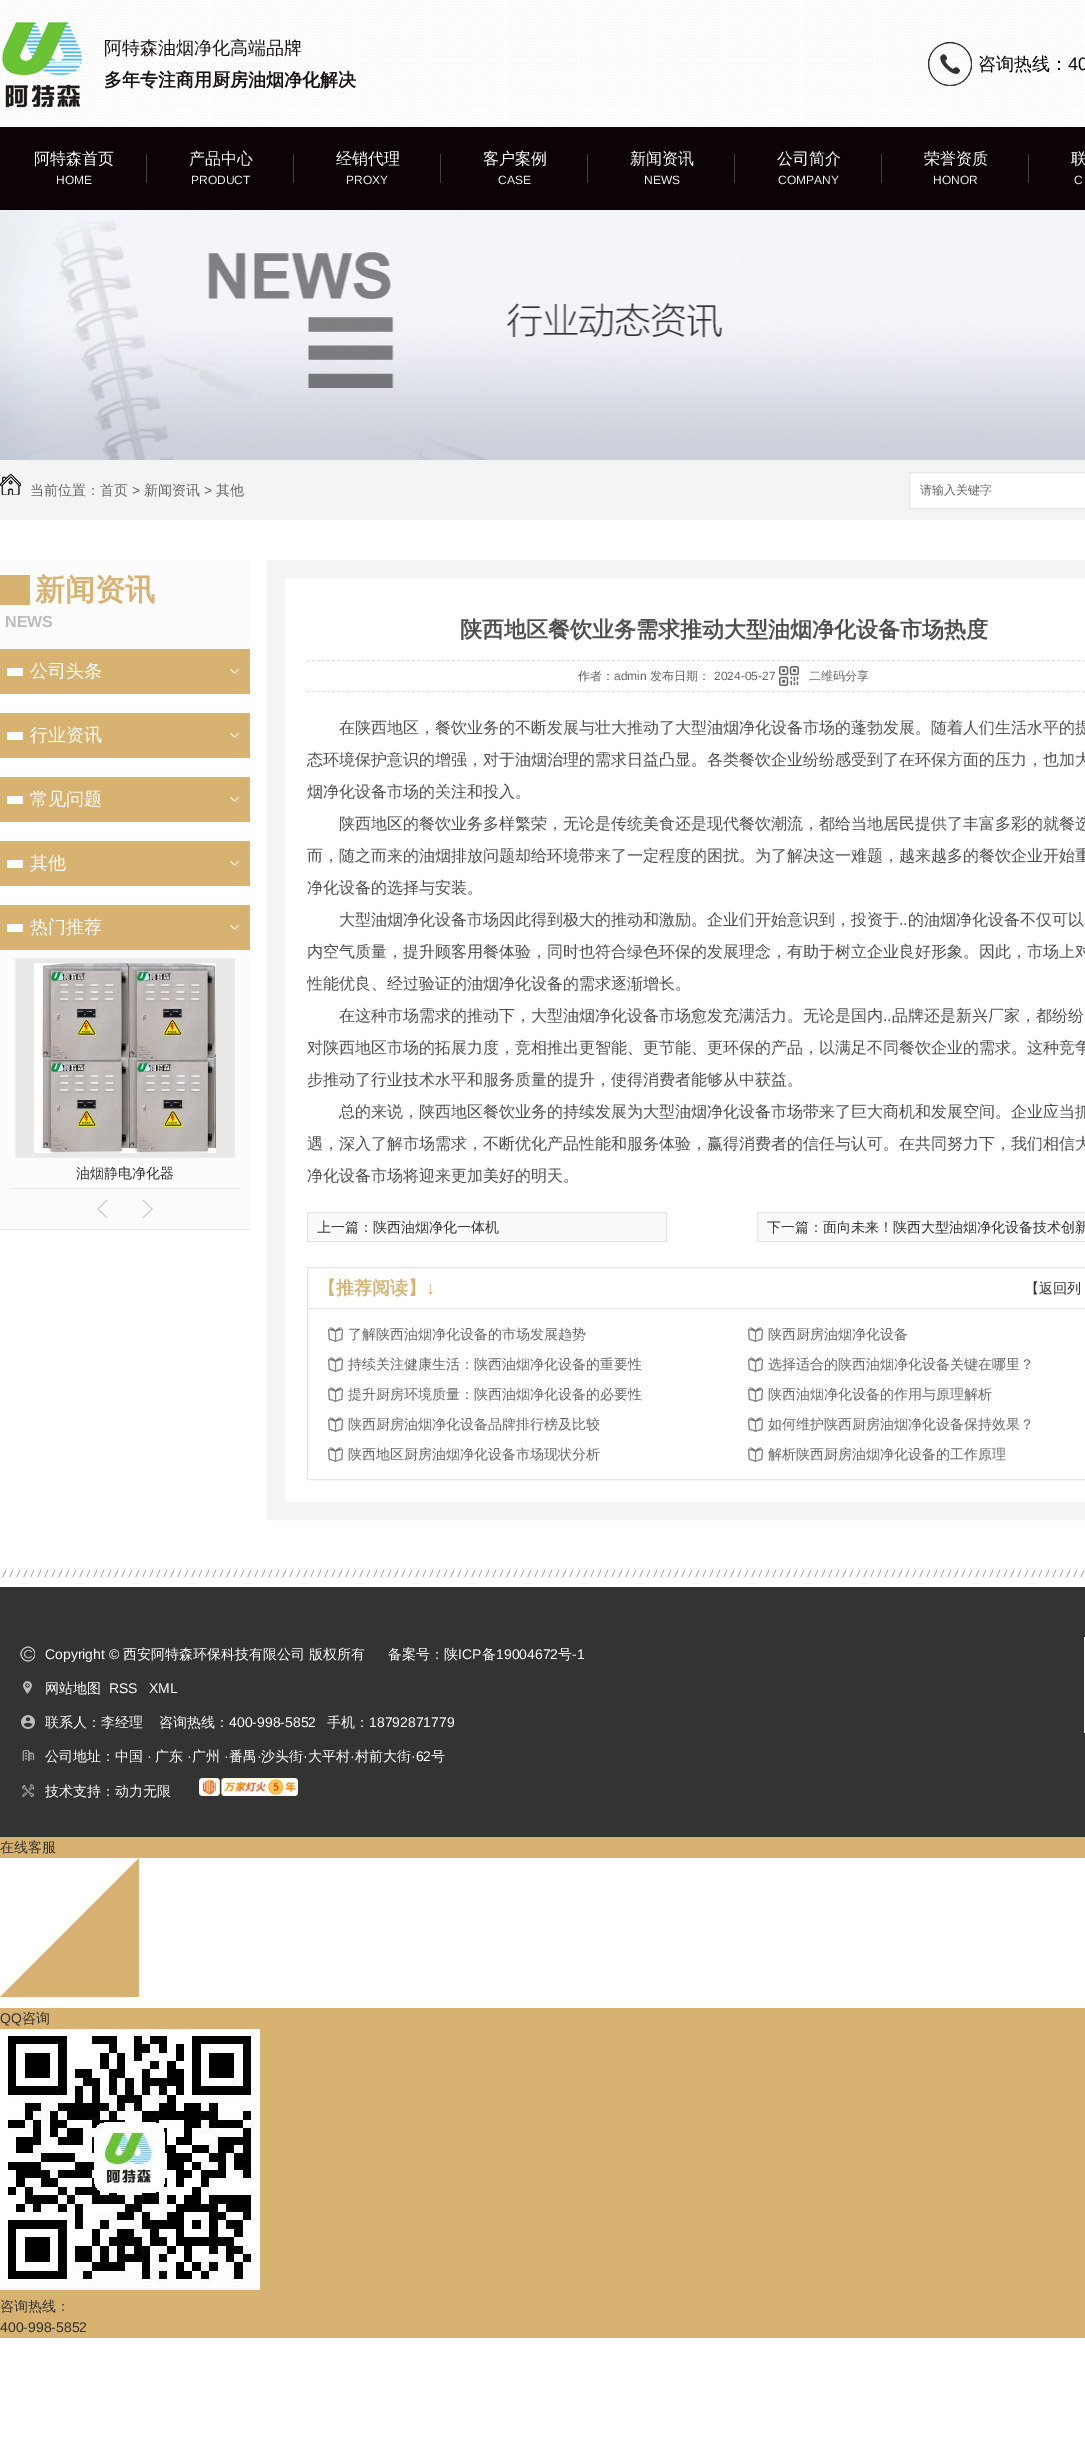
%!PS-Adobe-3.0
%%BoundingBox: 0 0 1085 2440
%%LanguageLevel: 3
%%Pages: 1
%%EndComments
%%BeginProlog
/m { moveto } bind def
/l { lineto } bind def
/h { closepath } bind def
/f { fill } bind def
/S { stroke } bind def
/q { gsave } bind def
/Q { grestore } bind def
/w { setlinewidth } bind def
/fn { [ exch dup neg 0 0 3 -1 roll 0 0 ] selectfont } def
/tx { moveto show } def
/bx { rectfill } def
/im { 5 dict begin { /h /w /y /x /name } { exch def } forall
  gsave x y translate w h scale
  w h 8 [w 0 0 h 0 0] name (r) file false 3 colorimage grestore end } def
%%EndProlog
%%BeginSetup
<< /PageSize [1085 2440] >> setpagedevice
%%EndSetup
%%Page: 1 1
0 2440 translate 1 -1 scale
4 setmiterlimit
1 setgray
0 0 1085 2440 bx
(image0.raw) 1 1 1083 126 im
(image1.raw) 1 20 83 93 im
/WenQuanYiZenHei-Medium 18 fn
0.086 0.075 0.075 setrgbcolor
(阿特森油烟净化高端品牌) 104 54 tx
/WenQuanYiZenHei-Bold 18 fn
(多年专注商用厨房油烟净化解决) 104 86 tx
(image2.raw) 928 42 44 44 im
/WenQuanYiZenHei-Medium 18 fn
0.004 setgray
(咨询热线：) 978 70 tx
/LiberationSans-Regular 18 fn
(40) 1068 70 tx
0.043 0.012 0.024 setrgbcolor
0 127 1085 83 bx
0.263 0.239 0.247 setrgbcolor
146 154 1 29 bx
/WenQuanYiZenHei-Medium 16 fn
1 setgray
(阿特森首页) 34 164 tx
/LiberationSans-Regular 12 fn
0.937 0.933 0.933 setrgbcolor
(HOME) 56 184 tx
0.263 0.239 0.247 setrgbcolor
293 154 1 29 bx
/WenQuanYiZenHei-Medium 16 fn
1 setgray
(产品中心) 189 164 tx
/LiberationSans-Regular 12 fn
0.937 0.933 0.933 setrgbcolor
(PRODUCT) 191 184 tx
0.263 0.239 0.247 setrgbcolor
440 154 1 29 bx
/WenQuanYiZenHei-Medium 16 fn
1 setgray
(经销代理) 336 164 tx
/LiberationSans-Regular 12 fn
0.937 0.933 0.933 setrgbcolor
(PROXY) 346 184 tx
0.263 0.239 0.247 setrgbcolor
587 154 1 29 bx
/WenQuanYiZenHei-Medium 16 fn
1 setgray
(客户案例) 483 164 tx
/LiberationSans-Regular 12 fn
0.937 0.933 0.933 setrgbcolor
(CASE) 498 184 tx
0.263 0.239 0.247 setrgbcolor
734 154 1 29 bx
/WenQuanYiZenHei-Medium 16 fn
1 setgray
(新闻资讯) 630 164 tx
/LiberationSans-Regular 12 fn
0.937 0.933 0.933 setrgbcolor
(NEWS) 644 184 tx
0.263 0.239 0.247 setrgbcolor
881 154 1 29 bx
/WenQuanYiZenHei-Medium 16 fn
1 setgray
(公司简介) 777 164 tx
/LiberationSans-Regular 12 fn
0.937 0.933 0.933 setrgbcolor
(COMPANY) 778 184 tx
0.263 0.239 0.247 setrgbcolor
1028 154 1 29 bx
/WenQuanYiZenHei-Medium 16 fn
1 setgray
(荣誉资质) 924 164 tx
/LiberationSans-Regular 12 fn
0.937 0.933 0.933 setrgbcolor
(HONOR) 933 184 tx
/WenQuanYiZenHei-Medium 16 fn
1 setgray
(联) 1071 164 tx
/LiberationSans-Regular 12 fn
0.937 0.933 0.933 setrgbcolor
(C) 1074 184 tx
(image3.raw) 0 210 1085 250 im
0.957 setgray
0 460 1085 60 bx
(image4.raw) 0 474 21 21 im
/WenQuanYiZenHei-Medium 14 fn
0.4 setgray
(当前位置：首页) 30 495 tx
/LiberationSans-Regular 14 fn
(>) 132 495 tx
/WenQuanYiZenHei-Medium 14 fn
(新闻资讯) 144 495 tx
/LiberationSans-Regular 14 fn
(>) 204 495 tx
/WenQuanYiZenHei-Medium 14 fn
(其他) 216 495 tx
1 setgray
909.5 472.5 m 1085.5 472.5 l 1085.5 508.5 l 909.5 508.5 l h q f Q
0.898 setgray
S
/WenQuanYiZenHei-Medium 12 fn
0.4 setgray
(请输入关键字) 920 494 tx
0.988 setgray
0 560 250 89 bx
0.847 0.698 0.443 setrgbcolor
0 575 30 30 bx
/WenQuanYiZenHei-Bold 30 fn
(新闻资讯) 35 600 tx
/LiberationSans-Bold 16 fn
0.737 setgray
(NEWS) 5 627 tx
0.847 0.698 0.443 setrgbcolor
0 649 250 45 bx
(image5.raw) 230 669 9 5 im
1 setgray
7 668 16 8 bx
/WenQuanYiZenHei-Medium 18 fn
(公司头条) 30 677 tx
0.847 0.698 0.443 setrgbcolor
0 713 250 45 bx
(image5.raw) 230 733 9 5 im
1 setgray
7 732 16 8 bx
(行业资讯) 30 741 tx
0.847 0.698 0.443 setrgbcolor
0 777 250 45 bx
(image5.raw) 230 797 9 5 im
1 setgray
7 796 16 8 bx
(常见问题) 30 805 tx
0.847 0.698 0.443 setrgbcolor
0 841 250 45 bx
(image5.raw) 230 861 9 5 im
1 setgray
7 860 16 8 bx
(其他) 30 869 tx
0.988 setgray
0 950 250 279 bx
0.91 setgray
0 1229 250 1 bx
0.847 0.698 0.443 setrgbcolor
0 905 250 45 bx
(image5.raw) 230 925 9 5 im
1 setgray
7 924 16 8 bx
(热门推荐) 30 933 tx
0.914 setgray
10 1188 230 1 bx
15.5 958.5 m 234.5 958.5 l 234.5 1157.5 l 15.5 1157.5 l h q f Q
0.933 setgray
S
(image6.raw) 34 963 182 190 im
/WenQuanYiZenHei-Medium 14 fn
0.2 setgray
(油烟静电净化器) 76 1178 tx
(image7.raw) 97 1200 11 18 im
(image8.raw) 142 1200 11 18 im
0.957 setgray
18 w
276 569 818 942 rectstroke
0.882 0.89 0.875 setrgbcolor
1 w
[3 2] 0 setdash
307 660.5 m 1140 660.5 l S
/WenQuanYiZenHei-Bold 22 fn
0.314 setgray
(陕西地区餐饮业务需求推动大型油烟净化设备市场热度) 460 637 tx
0.882 0.89 0.875 setrgbcolor
307 691.5 m 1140 691.5 l S
/WenQuanYiZenHei-Medium 12 fn
0.4 setgray
(作者：) 578 680 tx
/LiberationSans-Regular 12 fn
(admin) 614 680 tx
/WenQuanYiZenHei-Medium 12 fn
(发布日期：) 650 680 tx
/LiberationSans-Regular 12 fn
(2024-05-27) 714 680 tx
(image9.raw) 779 666 20 20 im
/WenQuanYiZenHei-Medium 12 fn
(二维码分享) 809 680 tx
/WenQuanYiZenHei-Medium 16 fn
0.314 setgray
(在陕西地区，餐饮业务的不断发展与壮大推动了大型油烟净化设备市场的蓬勃发展。随着人们生活水平的提) 339 733 tx
(态环境保护意识的增强，对于油烟治理的需求日益凸显。各类餐饮企业纷纷感受到了在环保方面的压力，也加大) 307 765 tx
(烟净化设备市场的关注和投入。) 307 797 tx
(陕西地区的餐饮业务多样繁荣，无论是传统美食还是现代餐饮潮流，都给当地居民提供了丰富多彩的就餐选) 339 829 tx
(而，随之而来的油烟排放问题却给环境带来了一定程度的困扰。为了解决这一难题，越来越多的餐饮企业开始重) 307 861 tx
(净化设备的选择与安装。) 307 893 tx
(大型油烟净化设备市场因此得到极大的推动和激励。企业们开始意识到，投资于) 339 925 tx
/LiberationSans-Regular 16 fn
(..) 899 925 tx
/WenQuanYiZenHei-Medium 16 fn
(的油烟净化设备不仅可以) 908 925 tx
(内空气质量，提升顾客用餐体验，同时也符合绿色环保的发展理念，有助于树立企业良好形象。因此，市场上对) 307 957 tx
(性能优良、经过验证的油烟净化设备的需求逐渐增长。) 307 989 tx
(在这种市场需求的推动下，大型油烟净化设备市场愈发充满活力。无论是国内) 339 1021 tx
/LiberationSans-Regular 16 fn
(..) 883 1021 tx
/WenQuanYiZenHei-Medium 16 fn
(品牌还是新兴厂家，都纷纷) 892 1021 tx
(对陕西地区市场的拓展力度，竞相推出更智能、更节能、更环保的产品，以满足不同餐饮企业的需求。这种竞争) 307 1053 tx
(步推动了行业技术水平和服务质量的提升，使得消费者能够从中获益。) 307 1085 tx
(总的来说，陕西地区餐饮业务的持续发展为大型油烟净化设备市场带来了巨大商机和发展空间。企业应当抓) 339 1117 tx
(遇，深入了解市场需求，不断优化产品性能和服务体验，赢得消费者的信任与认可。在共同努力下，我们相信大) 307 1149 tx
(净化设备市场将迎来更加美好的明天。) 307 1181 tx
0.98 setgray
307.5 1212.5 m 666.5 1212.5 l 666.5 1241.5 l 307.5 1241.5 l h q f Q
0.898 setgray
[] 0 setdash
S
/WenQuanYiZenHei-Medium 14 fn
0.2 setgray
(上一篇：陕西油烟净化一体机) 317 1232 tx
0.98 setgray
757.5 1212.5 m 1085.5 1212.5 l 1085.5 1241.5 l 757.5 1241.5 l h q f Q
0.898 setgray
S
0.2 setgray
(下一篇：面向未来！陕西大型油烟净化设备技术创新) 767 1232 tx
0.898 setgray
307.5 1267.5 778 212 rectstroke
308 1308 777 1 bx
/WenQuanYiZenHei-Bold 18 fn
0.847 0.698 0.443 setrgbcolor
(【推荐阅读】) 318 1294 tx
/LiberationSans-Bold 18 fn
(↓) 426 1294 tx
/WenQuanYiZenHei-Medium 14 fn
0.2 setgray
(【返回列) 1025 1293 tx
(image10.raw) 328 1327 15 15 im
0.4 setgray
(了解陕西油烟净化设备的市场发展趋势) 348 1339 tx
(image10.raw) 748 1327 15 15 im
(陕西厨房油烟净化设备) 768 1339 tx
(image10.raw) 328 1357 15 15 im
(持续关注健康生活：陕西油烟净化设备的重要性) 348 1369 tx
(image10.raw) 748 1357 15 15 im
(选择适合的陕西油烟净化设备关键在哪里？) 768 1369 tx
(image10.raw) 328 1387 15 15 im
(提升厨房环境质量：陕西油烟净化设备的必要性) 348 1399 tx
(image10.raw) 748 1387 15 15 im
(陕西油烟净化设备的作用与原理解析) 768 1399 tx
(image10.raw) 328 1417 15 15 im
(陕西厨房油烟净化设备品牌排行榜及比较) 348 1429 tx
(image10.raw) 748 1417 15 15 im
(如何维护陕西厨房油烟净化设备保持效果？) 768 1429 tx
(image10.raw) 328 1447 15 15 im
(陕西地区厨房油烟净化设备市场现状分析) 348 1459 tx
(image10.raw) 748 1447 15 15 im
(解析陕西厨房油烟净化设备的工作原理) 768 1459 tx
(image11.raw) 2 1570 1083 7 im
0.2 setgray
0 1587 1085 250 bx
(image12.raw) 20 1646 15 16 im
/LiberationSans-Regular 14 fn
1 setgray
(Copyright ©) 45 1659 tx
/WenQuanYiZenHei-Medium 14 fn
(西安阿特森环保科技有限公司) 123 1659 tx
(版权所有) 309 1659 tx
(备案号：陕) 388 1659 tx
/LiberationSans-Regular 14 fn
(ICP) 458 1659 tx
/WenQuanYiZenHei-Medium 14 fn
(备) 482 1659 tx
/LiberationSans-Regular 14 fn
(19004672) 496 1659 tx
/WenQuanYiZenHei-Medium 14 fn
(号) 558 1659 tx
/LiberationSans-Regular 14 fn
(-1) 572 1659 tx
(image13.raw) 23 1681 9 13 im
/WenQuanYiZenHei-Medium 14 fn
(网站地图) 45 1693 tx
/LiberationSans-Regular 14 fn
(RSS) 109 1693 tx
(XML) 149 1693 tx
(image14.raw) 21 1715 14 14 im
/WenQuanYiZenHei-Medium 14 fn
(联系人：李经理) 45 1727 tx
(咨询热线：) 159 1727 tx
/LiberationSans-Regular 14 fn
(400-998-5852) 229 1727 tx
/WenQuanYiZenHei-Medium 14 fn
(手机：) 327 1727 tx
/LiberationSans-Regular 14 fn
(18792871779) 369 1727 tx
(image15.raw) 22 1750 13 11 im
/WenQuanYiZenHei-Medium 14 fn
(公司地址：中国) 45 1761 tx
/LiberationSans-Regular 14 fn
(·) 147 1761 tx
/WenQuanYiZenHei-Medium 14 fn
(广东) 155 1761 tx
/LiberationSans-Regular 14 fn
(·) 187 1761 tx
/WenQuanYiZenHei-Medium 14 fn
(广州) 192 1761 tx
/LiberationSans-Regular 14 fn
(·) 224 1761 tx
/WenQuanYiZenHei-Medium 14 fn
(番禺) 229 1761 tx
/LiberationSans-Regular 14 fn
(·) 257 1761 tx
/WenQuanYiZenHei-Medium 14 fn
(沙头街) 261 1761 tx
/LiberationSans-Regular 14 fn
(·) 303 1761 tx
/WenQuanYiZenHei-Medium 14 fn
(大平村) 308 1761 tx
/LiberationSans-Regular 14 fn
(·) 350 1761 tx
/WenQuanYiZenHei-Medium 14 fn
(村前大街) 355 1761 tx
/LiberationSans-Regular 14 fn
(·62) 411 1761 tx
/WenQuanYiZenHei-Medium 14 fn
(号) 431 1761 tx
(image16.raw) 22 1784 12 13 im
(技术支持：动力无限) 45 1796 tx
(image17.raw) 199 1778 99 18 im
1084 1637 1 96 bx
0.847 0.698 0.443 setrgbcolor
0 1837 1085 21 bx
0.2 setgray
(在线客服) 0 1852 tx
0.847 0.698 0.443 setrgbcolor
139 1858 m 0 1997 l 139 1997 l h f
0 2008 1085 330 bx
/LiberationSans-Regular 14 fn
0.2 setgray
(QQ) 0 2023 tx
/WenQuanYiZenHei-Medium 14 fn
(咨询) 22 2023 tx
(image18.raw) 0 2029 260 261 im
(咨询热线：) 0 2311 tx
/LiberationSans-Regular 14 fn
(400-998-5852) 0 2332 tx
showpage
%%EOF
